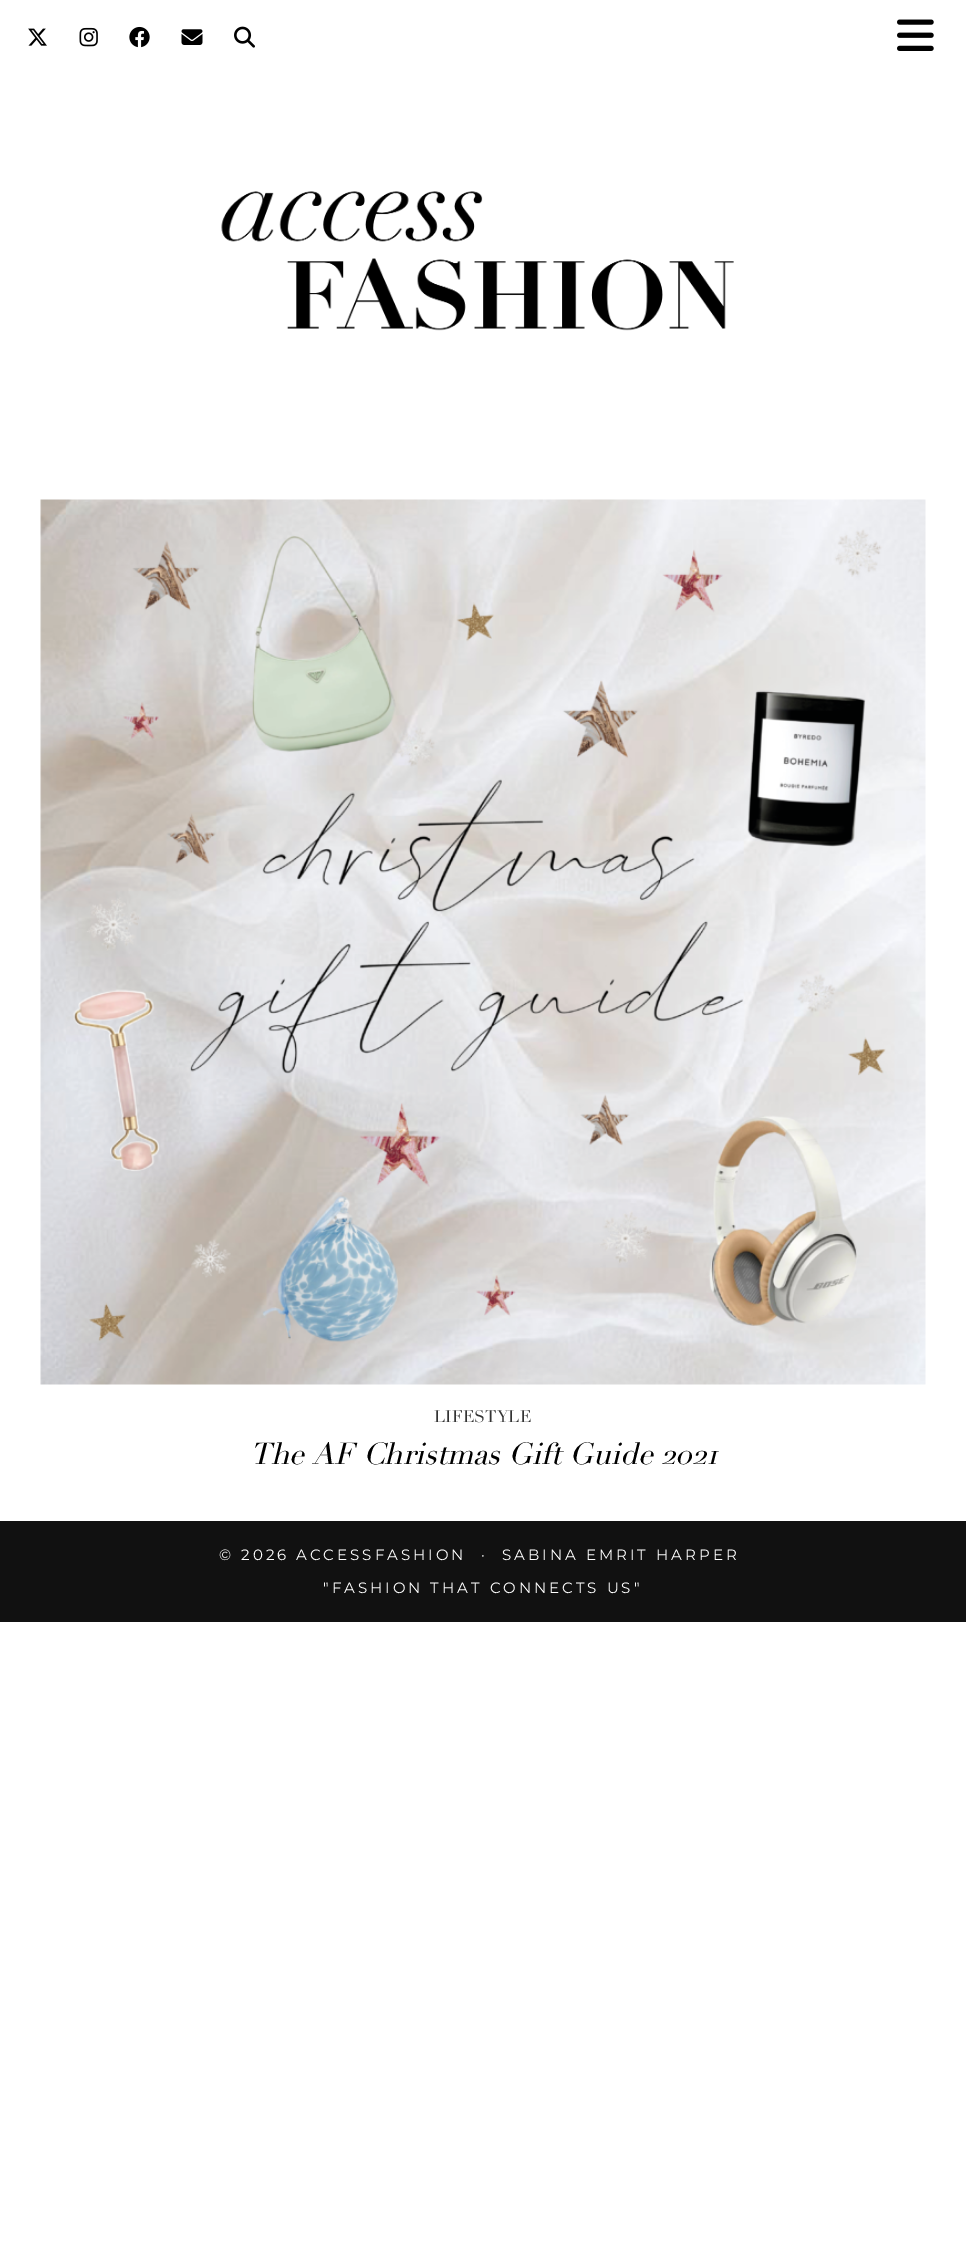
%!PS-Adobe-3.0
%%BoundingBox: 0 0 966 2248
%%LanguageLevel: 3
%%Pages: 1
%%EndComments
%%BeginProlog
/m { moveto } bind def
/fn { [ exch dup neg 0 0 3 -1 roll 0 0 ] selectfont } def
/tx { moveto show } def
/bx { rectfill } def
/im { 5 dict begin { /h /w /y /x /name } { exch def } forall
  gsave x y translate w h scale
  w h 8 [w 0 0 h 0 0] name (r) file false 3 colorimage grestore end } def
%%EndProlog
%%BeginSetup
<< /PageSize [966 2248] >> setpagedevice
%%EndSetup
%%Page: 1 1
0 2248 translate 1 -1 scale
4 setmiterlimit
1 setgray
0 0 966 2248 bx
(image0.raw) 28 28 19 18 im
(image1.raw) 79 27 19 20 im
(image2.raw) 129 26 21 22 im
(image3.raw) 181 29 22 16 im
(image4.raw) 234 26 21 22 im
(image5.raw) 897 19 37 32 im
(image6.raw) 221 191 513 140 im
(image7.raw) 40 499 886 886 im
/Didot-Regular 16.5 fn
0.2 setgray
(LIFESTYLE) 434 1422 tx
/Didot-Italic 30 fn
0 setgray
(The AF Christmas Gift Guide 2021) 250 1464 tx
0.067 setgray
0 1521 966 101 bx
/Montserrat-Thin 15 fn
1 setgray
219 1560 m 3 0 (© 2026 ACCESSFASHION) ashow
481 1560 m 3 0 (·) ashow
502 1560 m 3 0 (SABINA EMRIT HARPER) ashow
323 1593 m 3 0 ("FASHION THAT CONNECTS US") ashow
showpage
%%EOF
